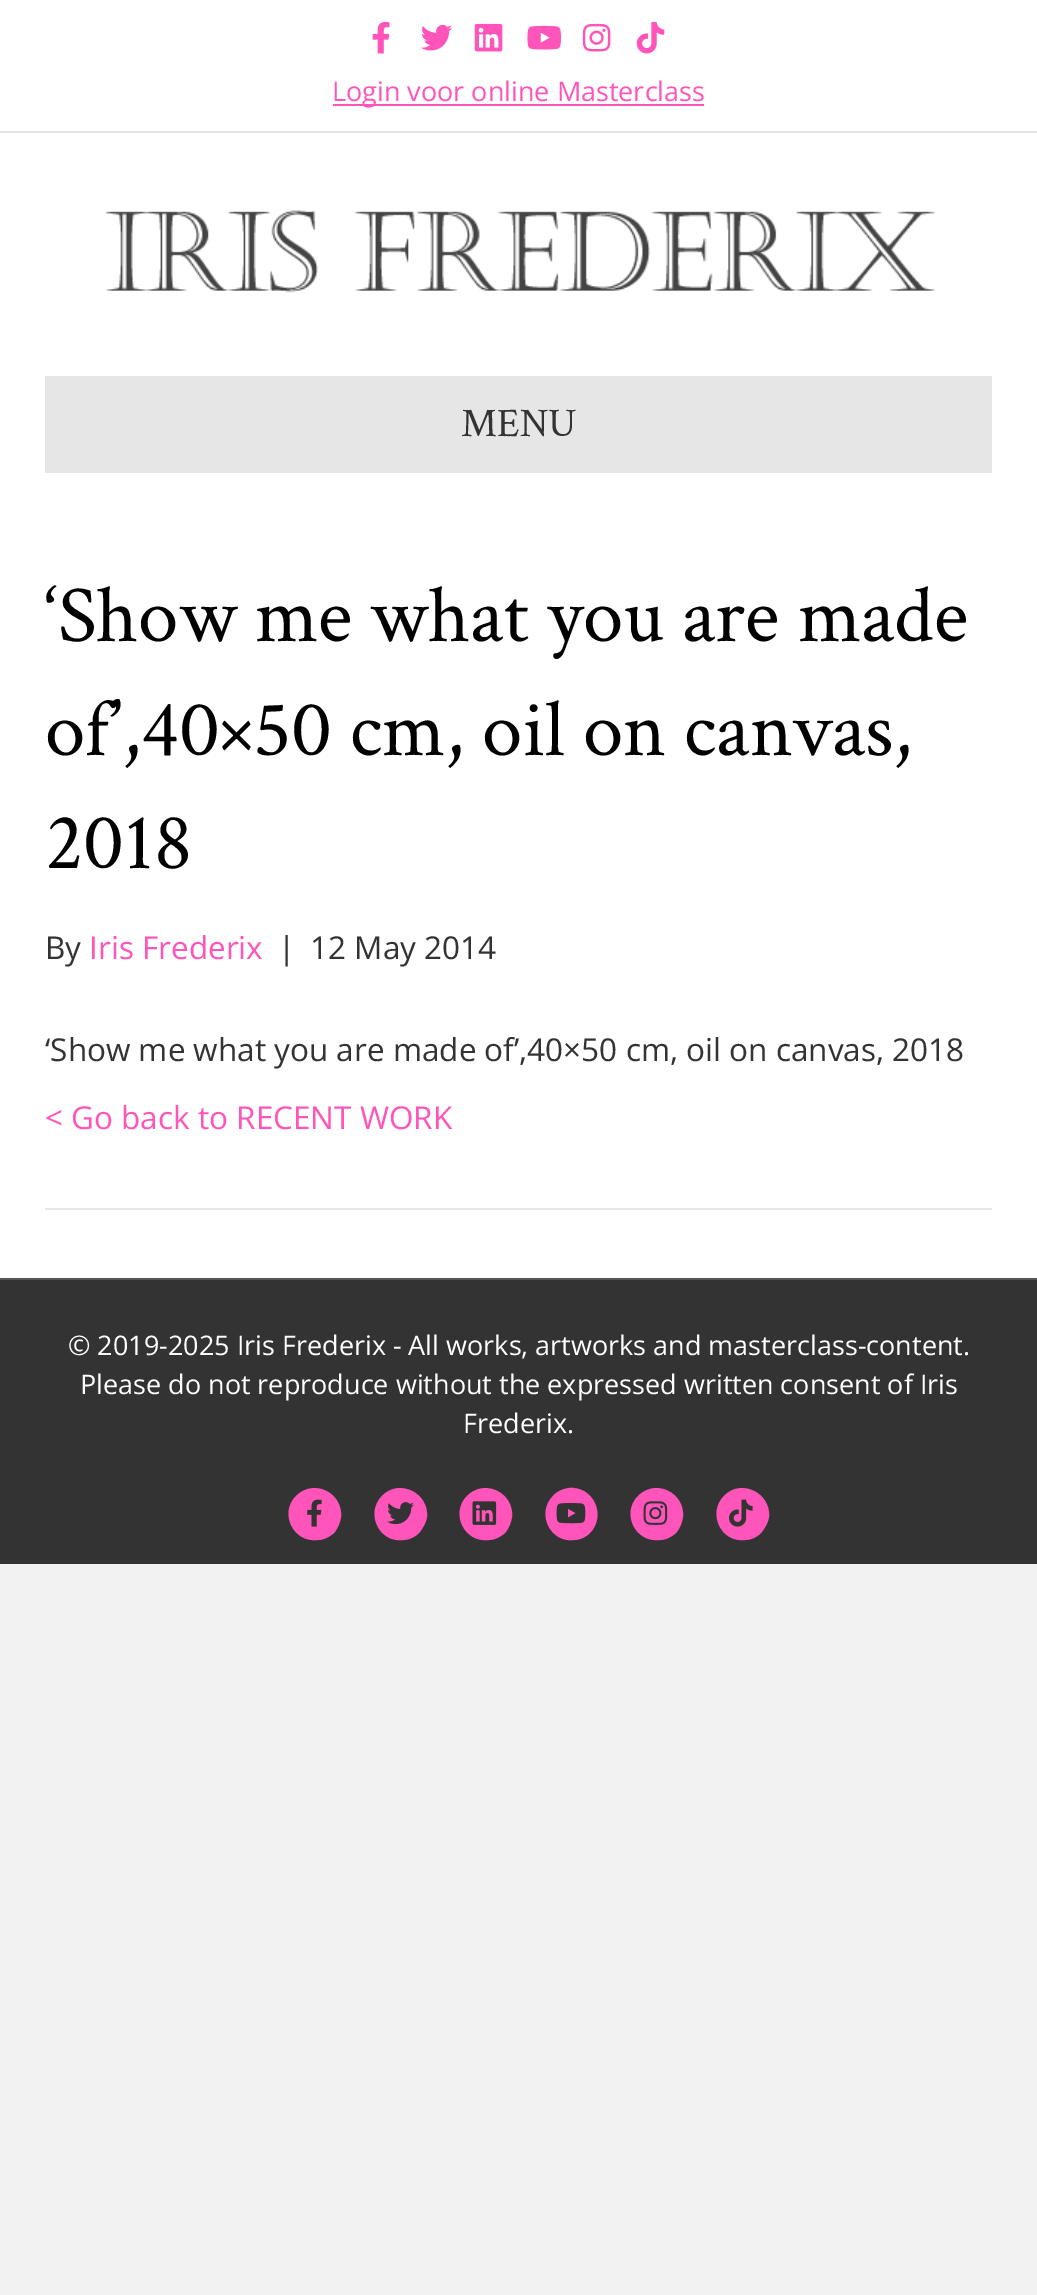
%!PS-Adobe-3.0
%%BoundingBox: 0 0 1037 2295
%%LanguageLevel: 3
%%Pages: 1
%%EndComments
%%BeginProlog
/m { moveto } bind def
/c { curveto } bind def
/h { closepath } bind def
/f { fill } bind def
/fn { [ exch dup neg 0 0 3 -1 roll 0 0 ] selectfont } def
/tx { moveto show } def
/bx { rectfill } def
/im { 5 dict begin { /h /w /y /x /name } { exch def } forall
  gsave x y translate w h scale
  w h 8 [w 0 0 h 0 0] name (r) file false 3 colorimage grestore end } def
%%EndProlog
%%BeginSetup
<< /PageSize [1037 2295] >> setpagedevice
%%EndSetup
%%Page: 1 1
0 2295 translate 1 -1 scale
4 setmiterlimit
0.949 setgray
0 0 1037 2295 bx
1 setgray
0 0 1037 131 bx
0.902 setgray
0 131 1037 2 bx
(image0.raw) 372 21 18 33 im
(image1.raw) 421 24 31 27 im
(image2.raw) 474 23 29 29 im
(image3.raw) 527 25 34 25 im
(image4.raw) 582 23 29 29 im
(image5.raw) 636 21 29 33 im
1 0.333 0.733 setrgbcolor
333 104 371 2 bx
/OpenSans-Regular 27 fn
(Login voor online Masterclass) 332 101 tx
1 setgray
0 133 1037 1145 bx
(image6.raw) 105 210 830 83 im
0.902 setgray
45 376 947 97 bx
/CrimsonText-Regular 40.5 fn
0.2 setgray
(MENU) 461 436 tx
/CrimsonText-Regular 81 fn
0 setgray
(‘Show me what you are made) 45 641 tx
(of’,40×50 cm, oil on canvas,) 45 755 tx
(2018) 45 868 tx
/OpenSans-Regular 31.5 fn
0.2 setgray
(By) 45 959 tx
1 0.333 0.733 setrgbcolor
(Iris Frederix) 89 959 tx
0.2 setgray
(|) 278 959 tx
(12 May 2014) 310 959 tx
(‘Show me what you are made of’,40×50 cm, oil on canvas, 2018) 45 1061 tx
1 0.333 0.733 setrgbcolor
(< Go back to RECENT WORK) 45 1129 tx
0.902 setgray
45 1208 947 2 bx
0.2 setgray
0 1280 1037 284 bx
0.329 setgray
0 1278 1037 2 bx
/OpenSans-Regular 27 fn
1 setgray
(© 2019-2025 Iris Frederix - All works, artworks and masterclass-content.) 68 1355 tx
(Please do not reproduce without the expressed written consent of Iris) 80 1394 tx
(Frederix.) 463 1433 tx
1 0.333 0.733 setrgbcolor
296 1496 m 314 1478 343 1493 341 1517 c 340 1523 338 1528 334 1533 c 329 1537 324 1540 318 1540 c 293 1543 279 1513 296 1496 c h f
(image7.raw) 307 1499 15 28 im
382 1496 m 399 1478 429 1493 427 1517 c 426 1523 423 1528 419 1533 c 415 1537 409 1540 403 1540 c 379 1543 365 1513 382 1496 c h f
(image8.raw) 387 1502 27 23 im
467 1496 m 485 1478 514 1493 512 1517 c 511 1523 509 1528 505 1533 c 500 1537 495 1540 489 1540 c 464 1543 450 1513 467 1496 c h f
(image9.raw) 472 1501 25 24 im
553 1496 m 557 1491 563 1489 569 1488 c 593 1486 607 1515 590 1533 c 586 1537 580 1540 574 1540 c 550 1543 536 1513 553 1496 c h f
(image10.raw) 556 1503 30 21 im
638 1496 m 656 1478 685 1493 683 1517 c 682 1523 680 1528 676 1533 c 671 1537 666 1540 660 1540 c 635 1543 621 1513 638 1496 c h f
(image11.raw) 643 1501 25 24 im
724 1496 m 741 1478 771 1493 769 1517 c 768 1523 765 1528 761 1533 c 757 1537 751 1540 745 1540 c 721 1543 707 1513 724 1496 c h f
(image12.raw) 729 1499 24 28 im
showpage
%%EOF
